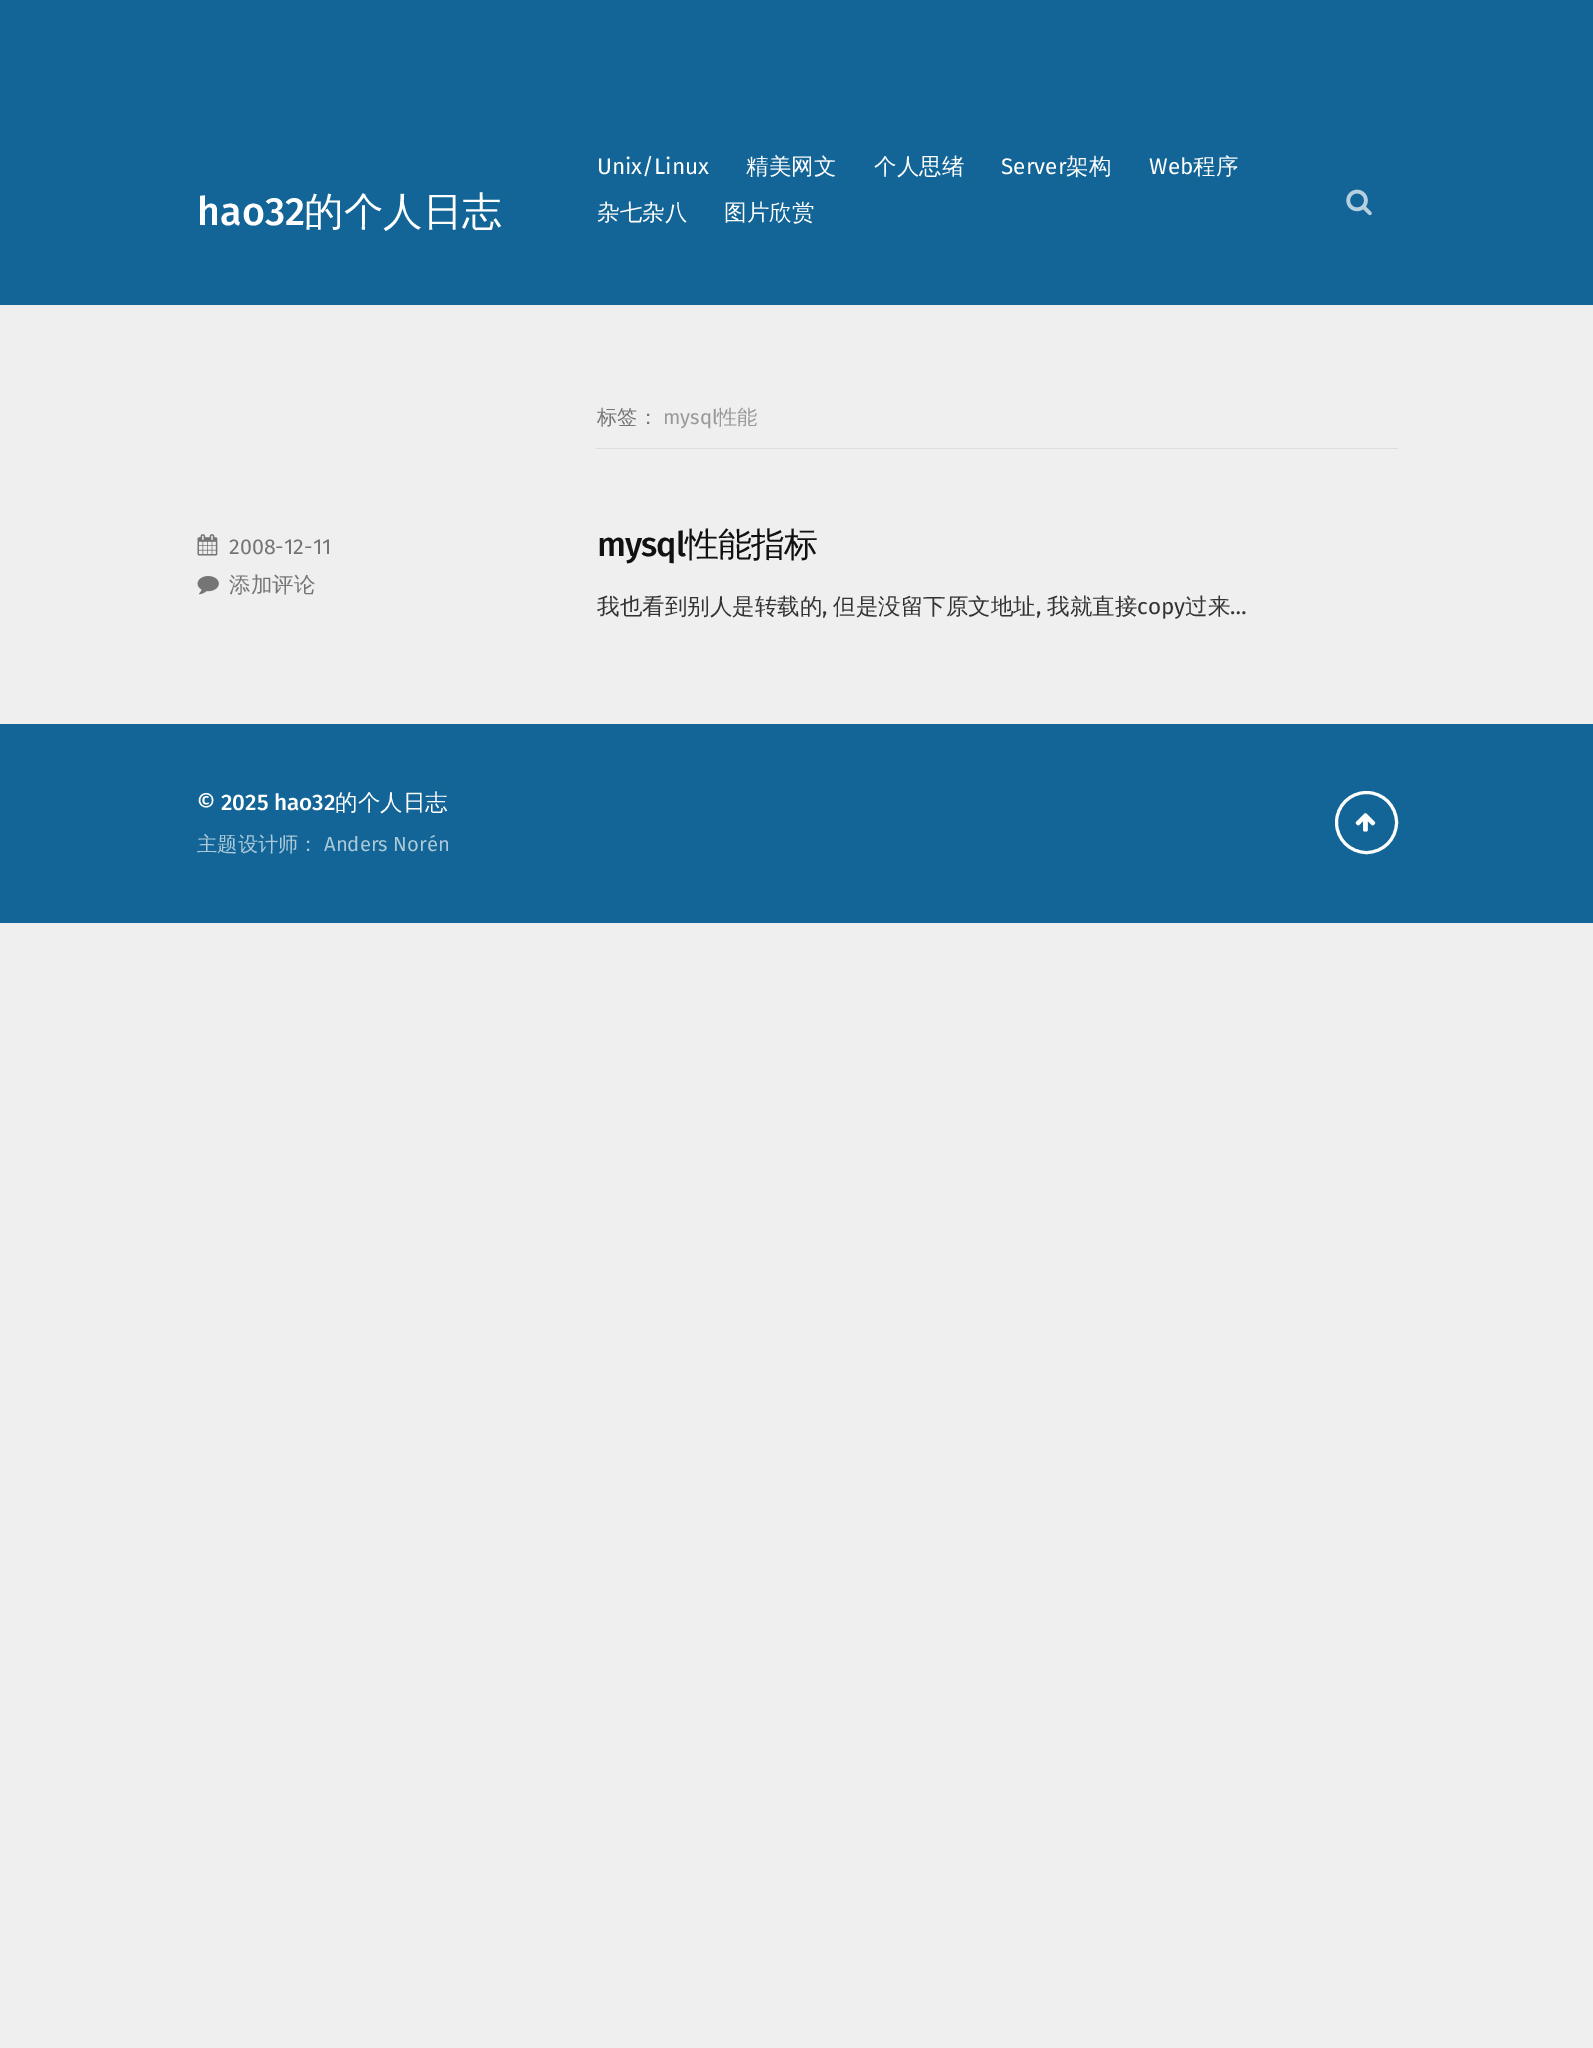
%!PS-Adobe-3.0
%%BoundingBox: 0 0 1593 2048
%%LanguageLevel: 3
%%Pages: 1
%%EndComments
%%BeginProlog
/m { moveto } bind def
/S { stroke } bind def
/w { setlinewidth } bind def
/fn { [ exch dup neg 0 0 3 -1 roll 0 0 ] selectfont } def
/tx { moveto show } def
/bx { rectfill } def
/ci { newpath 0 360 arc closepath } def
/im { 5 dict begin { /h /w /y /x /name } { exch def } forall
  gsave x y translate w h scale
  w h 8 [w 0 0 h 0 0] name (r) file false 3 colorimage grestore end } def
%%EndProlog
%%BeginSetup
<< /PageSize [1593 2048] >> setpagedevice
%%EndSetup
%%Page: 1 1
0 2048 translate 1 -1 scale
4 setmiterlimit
0.937 setgray
0 0 1593 2048 bx
0.071 0.396 0.588 setrgbcolor
0 0 1593 305 bx
/FiraSans-Medium 39.5 fn
1 setgray
(hao32) 197 225 tx
/WenQuanYiZenHei-Medium 39.5 fn
(的个人日志) 304 225 tx
/FiraSans-Regular 22.5 fn
(Unix/Linux) 597 174 tx
/WenQuanYiZenHei-Medium 22.5 fn
(精美网文) 746 174 tx
(个人思绪) 874 174 tx
/FiraSans-Regular 22.5 fn
(Server) 1001 174 tx
/WenQuanYiZenHei-Medium 22.5 fn
(架构) 1066 174 tx
/FiraSans-Regular 22.5 fn
(Web) 1149 174 tx
/WenQuanYiZenHei-Medium 22.5 fn
(程序) 1193 174 tx
(杂七杂八) 597 220 tx
(图片欣赏) 724 220 tx
(image0.raw) 1346 189 26 27 im
0.867 setgray
596 448 802 1 bx
/WenQuanYiZenHei-Medium 20.25 fn
0.459 setgray
(标签：) 597 424 tx
/FiraSans-Regular 20.25 fn
0.6 setgray
(mysql) 663 424 tx
/WenQuanYiZenHei-Medium 20.25 fn
(性能) 717 424 tx
(image1.raw) 197 534 21 22 im
/FiraSans-Regular 21.5 fn
0.459 setgray
(2008-12-11) 229 554 tx
(image2.raw) 197 576 22 19 im
/WenQuanYiZenHei-Medium 21.5 fn
(添加评论) 229 592 tx
/FiraSans-Medium 34 fn
0.067 setgray
597 556 m -1 0 (mysql) ashow
/WenQuanYiZenHei-Medium 34 fn
685 556 m -1 0 (性能指标) ashow
/WenQuanYiZenHei-Medium 22.5 fn
0.2 setgray
(我也看到别人是转载的) 597 614 tx
/FiraSans-Regular 22.5 fn
(,) 822 614 tx
/WenQuanYiZenHei-Medium 22.5 fn
(但是没留下原文地址) 833 614 tx
/FiraSans-Regular 22.5 fn
(,) 1036 614 tx
/WenQuanYiZenHei-Medium 22.5 fn
(我就直接) 1047 614 tx
/FiraSans-Regular 22.5 fn
(copy) 1137 614 tx
/WenQuanYiZenHei-Medium 22.5 fn
(过来) 1185 614 tx
/FiraSans-Regular 22.5 fn
(…) 1230 614 tx
0.071 0.396 0.588 setrgbcolor
0 724 1593 199 bx
/FiraSans-Medium 22.5 fn
1 setgray
(© 2025 hao32) 197 810 tx
/WenQuanYiZenHei-Medium 22.5 fn
(的个人日志) 335 810 tx
3 w
1366.5 822.5 30 ci S
(image3.raw) 1355 813 21 19 im
/WenQuanYiZenHei-Medium 20.25 fn
0.675 0.788 0.855 setrgbcolor
(主题设计师：) 197 851 tx
/FiraSans-Regular 20.25 fn
(Anders Norén) 324 851 tx
showpage
%%EOF
